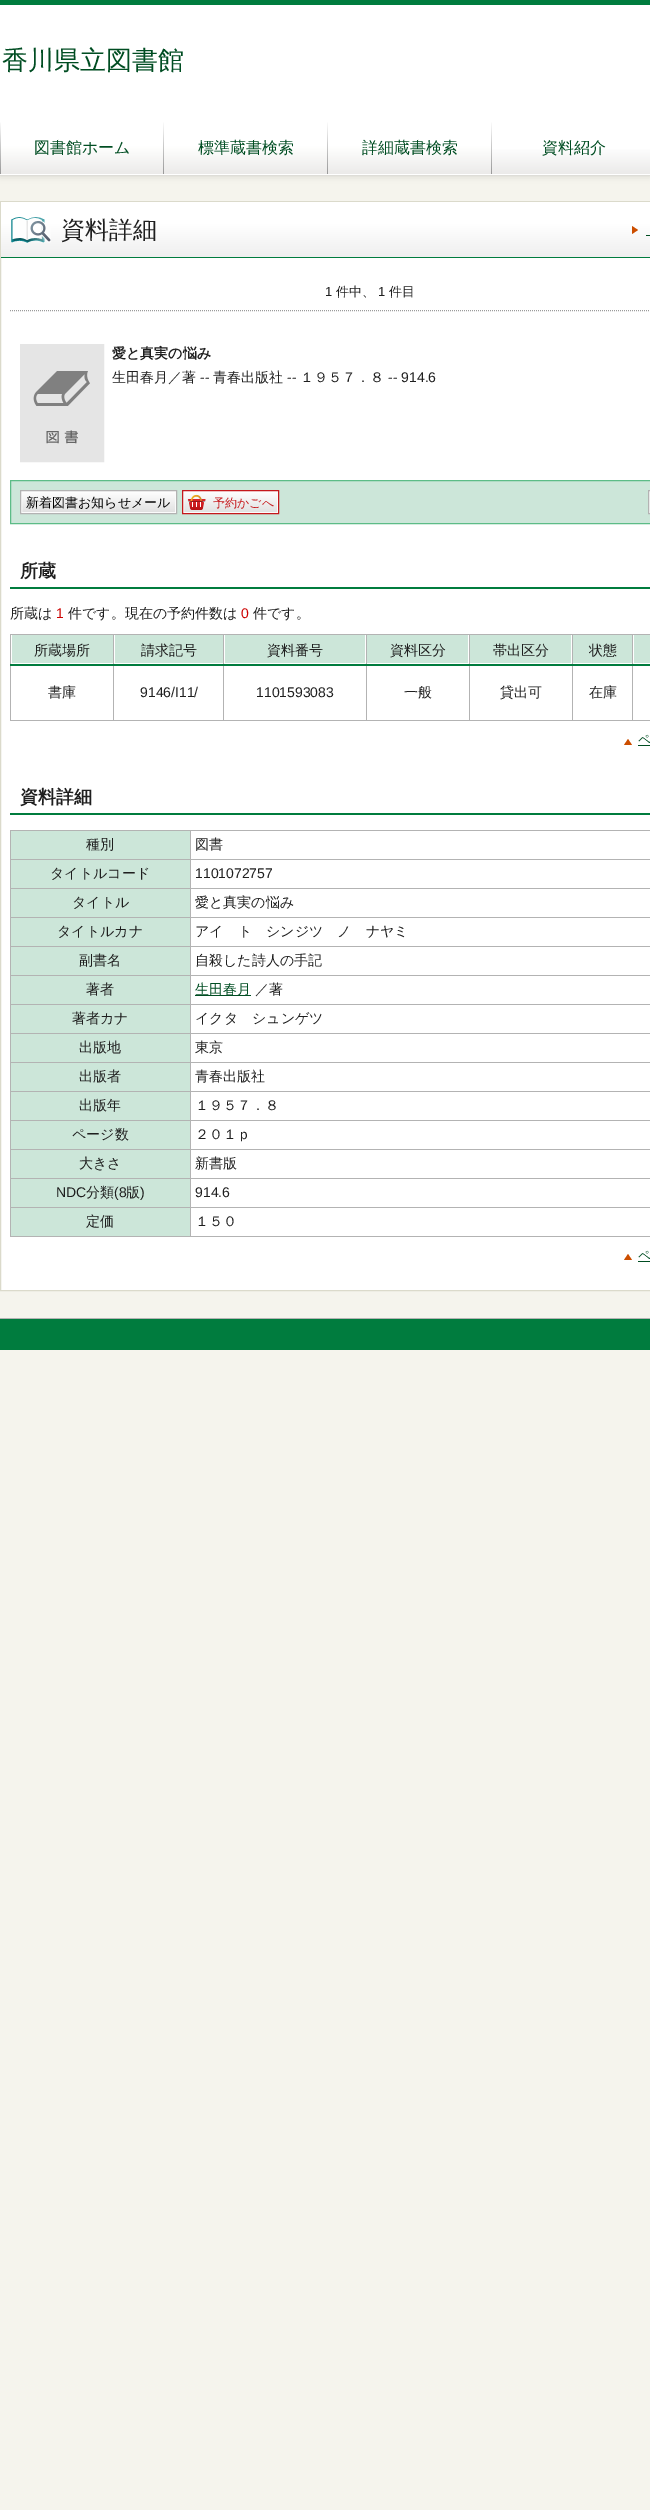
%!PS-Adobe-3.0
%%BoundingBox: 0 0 650 2510
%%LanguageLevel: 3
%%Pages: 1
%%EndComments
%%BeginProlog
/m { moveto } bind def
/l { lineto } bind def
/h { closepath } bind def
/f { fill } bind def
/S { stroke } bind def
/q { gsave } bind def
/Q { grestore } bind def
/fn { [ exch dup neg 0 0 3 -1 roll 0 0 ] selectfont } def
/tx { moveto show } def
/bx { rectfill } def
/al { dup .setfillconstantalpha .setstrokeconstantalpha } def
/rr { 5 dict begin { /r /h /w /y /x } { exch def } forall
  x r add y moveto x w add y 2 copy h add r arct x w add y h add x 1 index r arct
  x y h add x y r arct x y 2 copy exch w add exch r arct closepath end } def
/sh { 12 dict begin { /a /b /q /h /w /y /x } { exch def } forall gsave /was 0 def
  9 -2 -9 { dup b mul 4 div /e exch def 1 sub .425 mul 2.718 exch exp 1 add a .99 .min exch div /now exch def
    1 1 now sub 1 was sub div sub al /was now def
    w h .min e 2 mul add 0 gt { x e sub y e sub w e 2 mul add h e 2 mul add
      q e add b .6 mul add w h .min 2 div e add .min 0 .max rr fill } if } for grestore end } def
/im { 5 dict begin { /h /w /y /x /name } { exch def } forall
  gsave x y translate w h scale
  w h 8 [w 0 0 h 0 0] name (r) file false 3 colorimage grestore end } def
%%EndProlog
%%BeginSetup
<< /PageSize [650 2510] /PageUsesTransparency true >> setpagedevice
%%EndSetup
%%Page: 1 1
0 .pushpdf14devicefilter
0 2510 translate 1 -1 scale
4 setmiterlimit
0.961 0.957 0.929 setrgbcolor
0 0 650 2510 bx
0 setgray
0 0 650 176 0 3.5 0.13 sh
1 setgray
0 5 650 170 bx
0 0.486 0.243 setrgbcolor
0 0 650 5 bx
0.871 0.867 0.847 setrgbcolor
0 175 650 1 bx
/WenQuanYiZenHei-Medium 26 fn
0 0.302 0.133 setrgbcolor
(香川県立図書館) 2 69 tx
q 0 122 m 492 122 l 492 174 l 0 174 l h clip newpath
<< /ShadingType 2 /ColorSpace /DeviceRGB /Coords [492 174 492 118] /Extend [true true] /Function << /FunctionType 3 /Domain [0 1] /Functions [<< /FunctionType 2 /Domain [0 1] /C0 [0.6 0.6 0.6] /C1 [0.812 0.812 0.812] /N 1 >> << /FunctionType 2 /Domain [0 1] /C0 [0.812 0.812 0.812] /C1 [1 1 1] /N 1 >> << /FunctionType 2 /Domain [0 1] /C0 [1 1 1] /C1 [1 1 1] /N 1 >>] /Bounds [0.55 0.95] /Encode [0 1 0 1 0 1] >> >> shfill Q
q 1 122 m 163 122 l 163 174 l 1 174 l h clip newpath
<< /ShadingType 2 /ColorSpace /DeviceRGB /Coords [82 174 82 118] /Extend [true true] /Function << /FunctionType 3 /Domain [0 1] /Functions [<< /FunctionType 2 /Domain [0 1] /C0 [0.922 0.918 0.914] /C1 [1 1 1] /N 1 >> << /FunctionType 2 /Domain [0 1] /C0 [1 1 1] /C1 [1 1 1] /N 1 >>] /Bounds [0.5] /Encode [0 1 0 1] >> >> shfill Q
/WenQuanYiZenHei-Medium 16 fn
(図書館ホーム) 34 153 tx
q 164 122 m 327 122 l 327 174 l 164 174 l h clip newpath
<< /ShadingType 2 /ColorSpace /DeviceRGB /Coords [246 174 246 118] /Extend [true true] /Function << /FunctionType 3 /Domain [0 1] /Functions [<< /FunctionType 2 /Domain [0 1] /C0 [0.922 0.918 0.914] /C1 [1 1 1] /N 1 >> << /FunctionType 2 /Domain [0 1] /C0 [1 1 1] /C1 [1 1 1] /N 1 >>] /Bounds [0.5] /Encode [0 1 0 1] >> >> shfill Q
(標準蔵書検索) 198 153 tx
q 328 122 m 491 122 l 491 174 l 328 174 l h clip newpath
<< /ShadingType 2 /ColorSpace /DeviceRGB /Coords [410 174 410 118] /Extend [true true] /Function << /FunctionType 3 /Domain [0 1] /Functions [<< /FunctionType 2 /Domain [0 1] /C0 [0.922 0.918 0.914] /C1 [1 1 1] /N 1 >> << /FunctionType 2 /Domain [0 1] /C0 [1 1 1] /C1 [1 1 1] /N 1 >>] /Bounds [0.5] /Encode [0 1 0 1] >> >> shfill Q
(詳細蔵書検索) 362 153 tx
q 492 149 m 650 149 l 650 174 l 492 174 l h clip newpath
<< /ShadingType 2 /ColorSpace /DeviceRGB /Coords [574 174 574 118] /Extend [true true] /Function << /FunctionType 3 /Domain [0 1] /Functions [<< /FunctionType 2 /Domain [0 1] /C0 [0.922 0.918 0.914] /C1 [1 1 1] /N 1 >> << /FunctionType 2 /Domain [0 1] /C0 [1 1 1] /C1 [1 1 1] /N 1 >>] /Bounds [0.5] /Encode [0 1 0 1] >> >> shfill Q
(資料紹介) 542 153 tx
1 setgray
1 258 649 1032 bx
0.859 0.855 0.796 setrgbcolor
0.5 201.5 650 1089 rectstroke
q 1 202 m 650 202 l 650 257 l 1 257 l h clip newpath
<< /ShadingType 2 /ColorSpace /DeviceRGB /Coords [370 257 370 202] /Extend [true true] /Function << /FunctionType 3 /Domain [0 1] /Functions [<< /FunctionType 2 /Domain [0 1] /C0 [0.937 0.937 0.937] /C1 [1 1 1] /N 1 >> << /FunctionType 2 /Domain [0 1] /C0 [1 1 1] /C1 [1 1 1] /N 1 >>] /Bounds [0.62] /Encode [0 1 0 1] >> >> shfill Q
0 0.486 0.243 setrgbcolor
1 257 649 1 bx
(image0.raw) 11 217 40 26 im
/WenQuanYiZenHei-Medium 24 fn
0.122 setgray
(資料詳細) 61 238 tx
0.8 0.306 0 setrgbcolor
632 234 m 632 226 l 638 230 l h f
0 0.302 0.133 setrgbcolor
646 235 4 1 bx
0.608 setgray
[1 1] 0 setdash
10 310.5 m 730 310.5 l S
/LiberationSans-Regular 13 fn
0.122 setgray
(1) 325 296 tx
/WenQuanYiZenHei-Medium 13 fn
(件中、) 336 296 tx
/LiberationSans-Regular 13 fn
(1) 378 296 tx
/WenQuanYiZenHei-Medium 13 fn
(件目) 389 296 tx
0.898 setgray
[] 0 setdash
20.5 344.5 83 117 rectstroke
(image1.raw) 21 345 82 116 im
/WenQuanYiZenHei-Bold 14 fn
0.122 setgray
(愛と真実の悩み) 112 358 tx
/WenQuanYiZenHei-Medium 14 fn
(生田春月／著) 112 382 tx
/LiberationSans-Regular 14 fn
(--) 200 382 tx
/WenQuanYiZenHei-Medium 14 fn
(青春出版社) 213 382 tx
/LiberationSans-Regular 14 fn
(--) 287 382 tx
/WenQuanYiZenHei-Medium 14 fn
(１９５７．８) 300 382 tx
/LiberationSans-Regular 14 fn
(-- 914.6) 388 382 tx
0.8 0.902 0.851 setrgbcolor
10.5 480.5 m 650.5 480.5 l 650.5 523.5 l 10.5 523.5 l h q f Q
0.361 0.737 0.529 setrgbcolor
S
q 22 492 m 175 492 l 175 512 l 22 512 l h clip newpath
<< /ShadingType 2 /ColorSpace /DeviceRGB /Coords [99 513 99 491] /Extend [true true] /Function << /FunctionType 2 /Domain [0 1] /C0 [0.878 0.878 0.878] /C1 [1 1 1] /N 1 >> >> shfill Q
0.984 setgray
21.5 491.5 154 21 rectstroke
0.702 setgray
20.5 490.5 156 23 rectstroke
/WenQuanYiZenHei-Medium 13 fn
0 setgray
(新着図書お知らせメール) 26 507 tx
q 184 492 m 277 492 l 277 512 l 184 512 l h clip newpath
<< /ShadingType 2 /ColorSpace /DeviceRGB /Coords [231 513 231 491] /Extend [true true] /Function << /FunctionType 2 /Domain [0 1] /C0 [0.878 0.878 0.878] /C1 [1 1 1] /N 1 >> >> shfill Q
0.984 setgray
183.5 491.5 94 21 rectstroke
0.773 0.094 0.11 setrgbcolor
182.5 490.5 96 23 rectstroke
(image2.raw) 187 494 19 16 im
/WenQuanYiZenHei-Medium 12 fn
(予約かごへ) 213 507 tx
0.984 setgray
649.5 491.5 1 21 rectstroke
0.702 setgray
648.5 490.5 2 23 rectstroke
0 0.486 0.243 setrgbcolor
10 587 640 2 bx
/WenQuanYiZenHei-Bold 18 fn
0.122 setgray
(所蔵) 20 577 tx
/WenQuanYiZenHei-Medium 14 fn
(所蔵は) 10 618 tx
/LiberationSans-Regular 14 fn
0.8 0.004 0 setrgbcolor
(1) 56 618 tx
/WenQuanYiZenHei-Medium 14 fn
0.122 setgray
(件です。現在の予約件数は) 68 618 tx
/LiberationSans-Regular 14 fn
0.8 0.004 0 setrgbcolor
(0) 241 618 tx
/WenQuanYiZenHei-Medium 14 fn
0.122 setgray
(件です。) 253 618 tx
0.702 setgray
10 634 640 1 bx
10 720 640 1 bx
10 634 1 87 bx
0.8 0.902 0.851 setrgbcolor
634 635 16 28 bx
0.702 setgray
113 634 1 87 bx
223 634 1 87 bx
366 634 1 87 bx
469 634 1 87 bx
572 634 1 87 bx
632 634 1 87 bx
0 0.486 0.243 setrgbcolor
10 664 640 2 bx
0.8 0.902 0.851 setrgbcolor
12 635 101 28 bx
0.122 setgray
(所蔵場所) 34 655 tx
0.8 0.902 0.851 setrgbcolor
115 635 108 28 bx
0.122 setgray
(請求記号) 141 655 tx
0.8 0.902 0.851 setrgbcolor
225 635 140 28 bx
0.122 setgray
(資料番号) 267 655 tx
0.8 0.902 0.851 setrgbcolor
367 635 101 28 bx
0.122 setgray
(資料区分) 390 655 tx
0.8 0.902 0.851 setrgbcolor
470 635 101 28 bx
0.122 setgray
(帯出区分) 493 655 tx
0.8 0.902 0.851 setrgbcolor
573 635 59 28 bx
0.122 setgray
(状態) 589 655 tx
(書庫) 48 697 tx
/LiberationSans-Regular 14 fn
(9146/I11/) 140 697 tx
(1101593083) 256 697 tx
/WenQuanYiZenHei-Medium 14 fn
(一般) 404 697 tx
(貸出可) 500 697 tx
(在庫) 589 697 tx
0.8 0.306 0 setrgbcolor
632 745 m 624 745 l 628 739 l h f
/WenQuanYiZenHei-Medium 13 fn
0 0.302 0.133 setrgbcolor
(ペ) 638 744 tx
638 745 12 1 bx
0 0.486 0.243 setrgbcolor
10 813 640 2 bx
/WenQuanYiZenHei-Bold 18 fn
0.122 setgray
(資料詳細) 20 803 tx
0.702 setgray
10 830 640 1 bx
10 1236 640 1 bx
10 830 1 407 bx
0.8 0.902 0.851 setrgbcolor
11 831 179 28 bx
/WenQuanYiZenHei-Medium 14 fn
0.122 setgray
(種別) 86 849 tx
0.702 setgray
190 859 460 1 bx
190 888 460 1 bx
190 917 460 1 bx
190 946 460 1 bx
190 975 460 1 bx
190 1004 460 1 bx
190 1033 460 1 bx
190 1062 460 1 bx
190 1091 460 1 bx
190 1120 460 1 bx
190 1149 460 1 bx
190 1178 460 1 bx
190 1207 460 1 bx
190 1207 1 30 bx
10 1207 181 1 bx
190 1178 1 30 bx
10 1178 181 1 bx
190 1149 1 30 bx
10 1149 181 1 bx
190 1120 1 30 bx
10 1120 181 1 bx
190 1091 1 30 bx
10 1091 181 1 bx
190 1062 1 30 bx
10 1062 181 1 bx
190 1033 1 30 bx
10 1033 181 1 bx
190 1004 1 30 bx
10 1004 181 1 bx
190 975 1 30 bx
10 975 181 1 bx
190 946 1 30 bx
10 946 181 1 bx
190 917 1 30 bx
10 917 181 1 bx
190 888 1 30 bx
10 888 181 1 bx
190 859 1 30 bx
10 859 181 1 bx
190 830 1 30 bx
0.122 setgray
(図書) 195 849 tx
0.8 0.902 0.851 setrgbcolor
11 860 179 28 bx
0.122 setgray
(タイトルコード) 50 878 tx
/LiberationSans-Regular 14 fn
(1101072757) 195 878 tx
0.8 0.902 0.851 setrgbcolor
11 889 179 28 bx
/WenQuanYiZenHei-Medium 14 fn
0.122 setgray
(タイトル) 72 907 tx
(愛と真実の悩み) 195 907 tx
0.8 0.902 0.851 setrgbcolor
11 918 179 28 bx
0.122 setgray
(タイトルカナ) 57 936 tx
(アイ　ト　シンジツ　ノ　ナヤミ) 195 936 tx
0.8 0.902 0.851 setrgbcolor
11 947 179 28 bx
0.122 setgray
(副書名) 79 965 tx
(自殺した詩人の手記) 195 965 tx
0.8 0.902 0.851 setrgbcolor
11 976 179 28 bx
0.122 setgray
(著者) 86 994 tx
0 0.302 0.133 setrgbcolor
195 995 56 1 bx
(生田春月) 195 994 tx
0.122 setgray
(／著) 255 994 tx
0.8 0.902 0.851 setrgbcolor
11 1005 179 28 bx
0.122 setgray
(著者カナ) 72 1023 tx
(イクタ　シュンゲツ) 195 1023 tx
0.8 0.902 0.851 setrgbcolor
11 1034 179 28 bx
0.122 setgray
(出版地) 79 1052 tx
(東京) 195 1052 tx
0.8 0.902 0.851 setrgbcolor
11 1063 179 28 bx
0.122 setgray
(出版者) 79 1081 tx
(青春出版社) 195 1081 tx
0.8 0.902 0.851 setrgbcolor
11 1092 179 28 bx
0.122 setgray
(出版年) 79 1110 tx
(１９５７．８) 195 1110 tx
0.8 0.902 0.851 setrgbcolor
11 1121 179 28 bx
0.122 setgray
(ページ数) 72 1139 tx
(２０１ｐ) 195 1139 tx
0.8 0.902 0.851 setrgbcolor
11 1150 179 28 bx
0.122 setgray
(大きさ) 79 1168 tx
(新書版) 195 1168 tx
0.8 0.902 0.851 setrgbcolor
11 1179 179 28 bx
/LiberationSans-Regular 14 fn
0.122 setgray
(NDC) 56 1197 tx
/WenQuanYiZenHei-Medium 14 fn
(分類) 86 1197 tx
/LiberationSans-Regular 14 fn
(\(8) 114 1197 tx
/WenQuanYiZenHei-Medium 14 fn
(版) 126 1197 tx
/LiberationSans-Regular 14 fn
(\)) 140 1197 tx
(914.6) 195 1197 tx
0.8 0.902 0.851 setrgbcolor
11 1208 179 28 bx
/WenQuanYiZenHei-Medium 14 fn
0.122 setgray
(定価) 86 1226 tx
(１５０) 195 1226 tx
0.8 0.306 0 setrgbcolor
632 1260 m 624 1260 l 628 1254 l h f
/WenQuanYiZenHei-Medium 13 fn
0 0.302 0.133 setrgbcolor
(ペ) 638 1260 tx
638 1261 12 1 bx
0 0.486 0.243 setrgbcolor
0 1319 650 31 bx
0.702 setgray
0 1318 650 1 bx
.poppdf14devicefilter showpage
%%EOF
